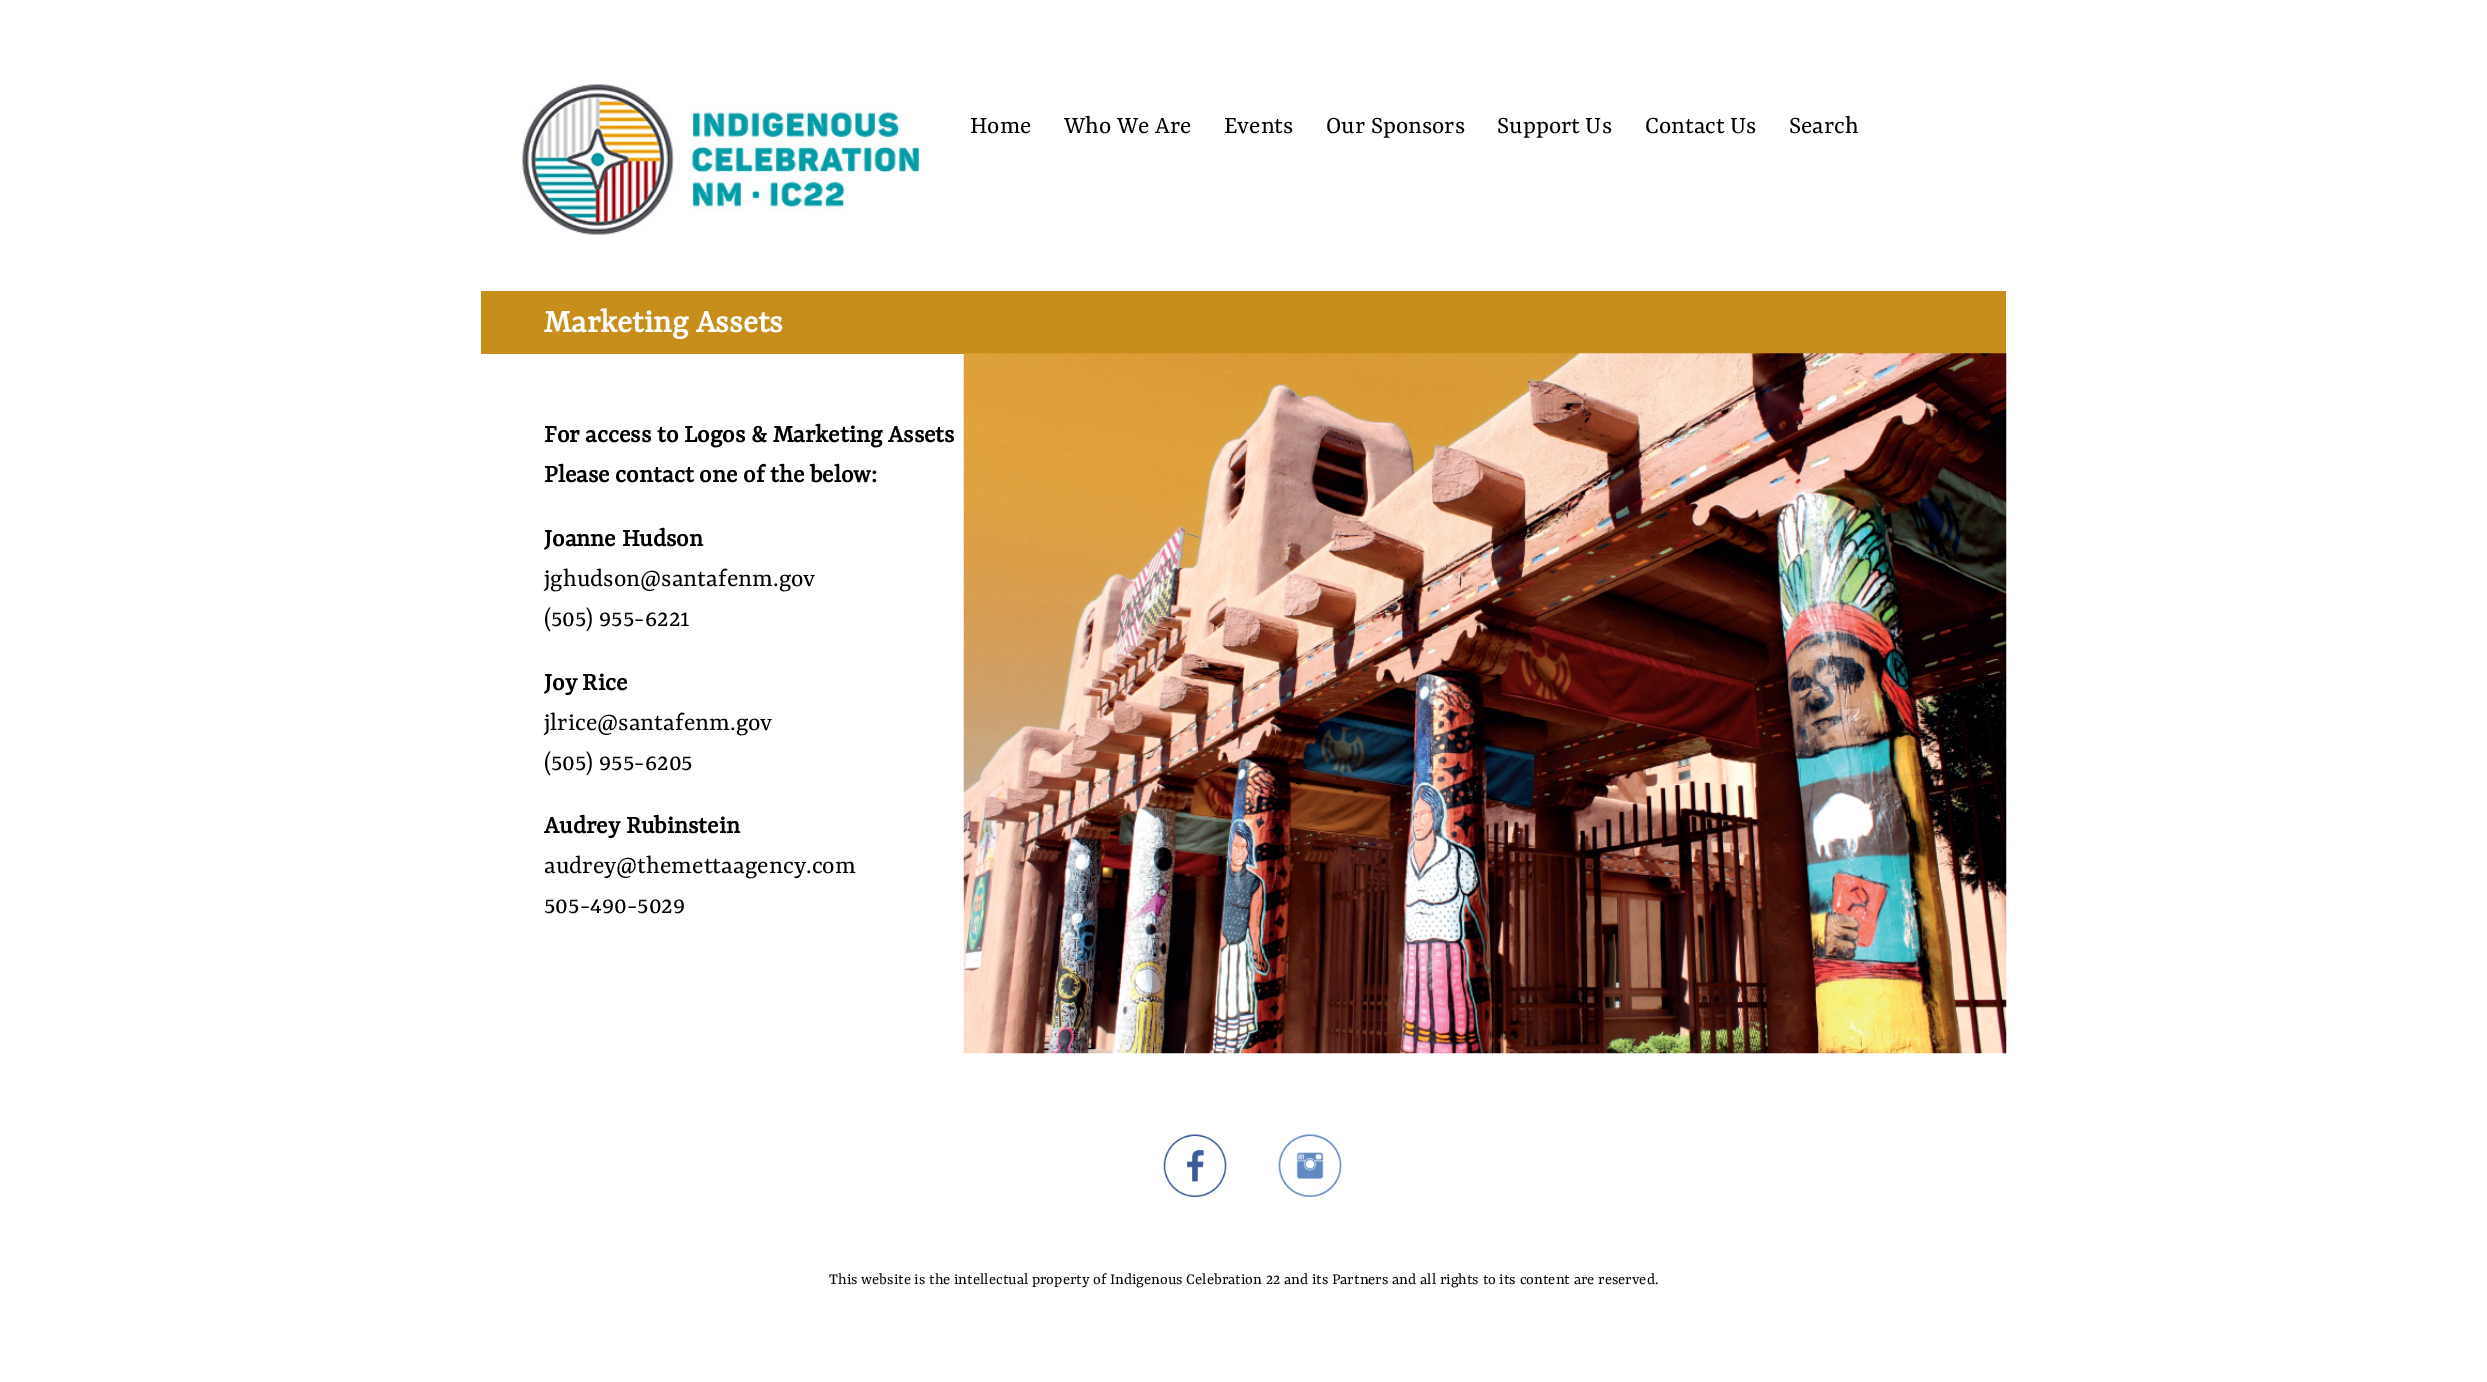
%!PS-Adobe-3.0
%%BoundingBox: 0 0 2487 1382
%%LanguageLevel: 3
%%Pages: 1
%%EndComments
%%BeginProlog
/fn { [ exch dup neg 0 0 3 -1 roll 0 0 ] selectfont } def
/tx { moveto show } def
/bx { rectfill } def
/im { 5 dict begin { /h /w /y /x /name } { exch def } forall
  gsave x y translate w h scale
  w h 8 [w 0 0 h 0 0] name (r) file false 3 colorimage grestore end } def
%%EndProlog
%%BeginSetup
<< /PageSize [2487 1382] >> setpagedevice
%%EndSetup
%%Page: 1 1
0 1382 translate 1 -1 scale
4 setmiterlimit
1 setgray
0 0 2487 1382 bx
(image0.raw) 522 84 397 151 im
/Rasa-Regular 26.25 fn
0 setgray
(Home) 970 133 tx
(Who We Are) 1064 133 tx
(Events) 1224 133 tx
(Our Sponsors) 1326 133 tx
(Support Us) 1497 133 tx
(Contact Us) 1645 133 tx
(Search) 1789 133 tx
0.78 0.557 0.11 setrgbcolor
481 291 1525 63 bx
/Rasa-Bold 35 fn
1 setgray
(Marketing Assets) 544 332 tx
/Rasa-Bold 26.7 fn
0 setgray
(For access to Logos & Marketing Assets) 544 442 tx
(Please contact one of the below:) 544 482 tx
(Joanne Hudson) 544 546 tx
/Rasa-Regular 26.7 fn
(jghudson@santafenm.gov) 544 586 tx
(\(505\) 955-6221) 544 626 tx
/Rasa-Bold 26.7 fn
(Joy Rice) 544 690 tx
/Rasa-Regular 26.7 fn
(jlrice@santafenm.gov) 544 730 tx
(\(505\) 955-6205) 544 770 tx
/Rasa-Bold 26.7 fn
(Audrey Rubinstein) 544 833 tx
/Rasa-Regular 26.7 fn
(audrey@themettaagency.com) 544 873 tx
(505-490-5029) 544 913 tx
(image1.raw) 963 353 1044 701 im
(image2.raw) 1163 1134 64 63 im
(image3.raw) 1278 1134 64 63 im
/Rasa-Regular 16.65 fn
0.024 setgray
(This website is the intellectual property of Indigenous Celebration 22 and its Partners and all rights to its content are reserved.) 829 1284 tx
showpage
%%EOF
